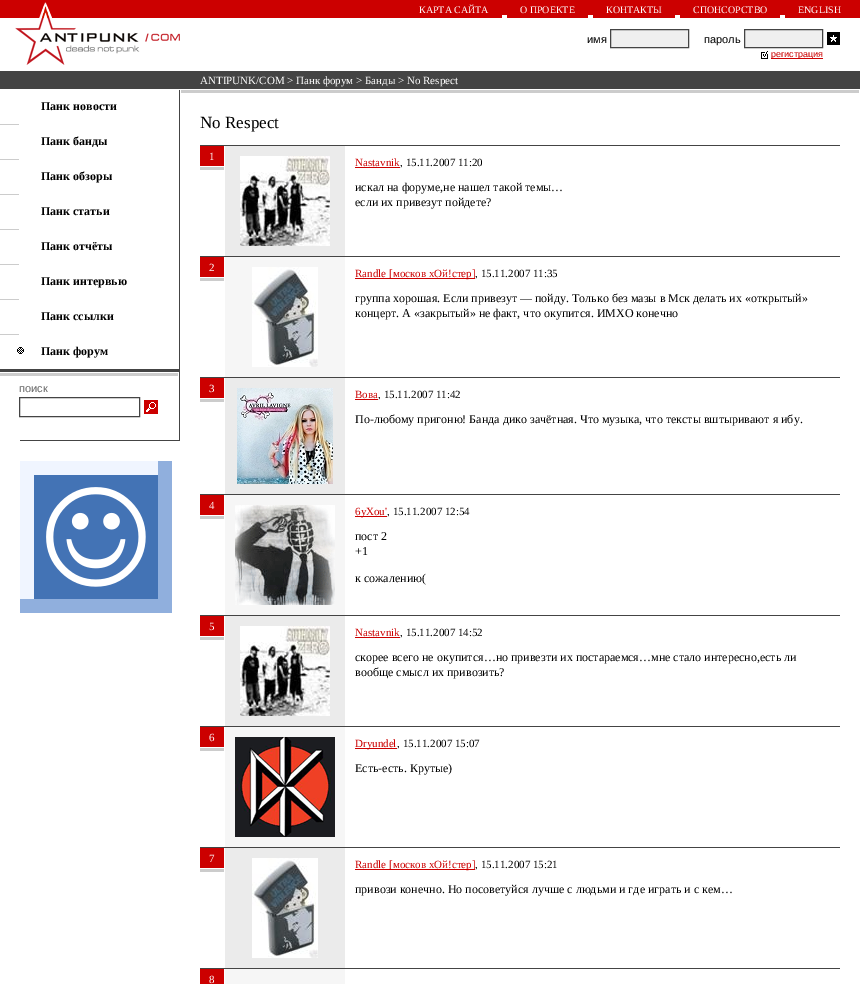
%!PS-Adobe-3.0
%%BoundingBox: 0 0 860 984
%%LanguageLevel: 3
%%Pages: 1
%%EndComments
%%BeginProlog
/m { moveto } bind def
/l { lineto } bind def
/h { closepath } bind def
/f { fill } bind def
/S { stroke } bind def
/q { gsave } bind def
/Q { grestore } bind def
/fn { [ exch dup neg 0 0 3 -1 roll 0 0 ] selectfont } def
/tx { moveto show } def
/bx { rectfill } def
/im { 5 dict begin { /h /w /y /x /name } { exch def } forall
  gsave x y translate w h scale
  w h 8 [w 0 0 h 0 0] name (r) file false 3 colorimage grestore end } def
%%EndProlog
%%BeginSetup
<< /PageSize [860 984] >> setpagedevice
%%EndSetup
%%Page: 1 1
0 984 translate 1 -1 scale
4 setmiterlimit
1 setgray
0 0 860 984 bx
0.8 0 0 setrgbcolor
0 0 860 18 bx
(image0.raw) 39 2 13 16 im
/LiberationSerif-Regular 10 fn
1 setgray
(КАРТА САЙТА) 419 13 tx
(О ПРОЕКТЕ) 520 13 tx
(КОНТАКТЫ) 606 13 tx
(СПОНСОРСТВО) 693 13 tx
(ENGLISH) 798 13 tx
502 15 5 3 bx
588 15 5 3 bx
675 15 5 3 bx
780 15 5 3 bx
(image1.raw) 15 18 165 47 im
/LiberationSans-Regular 11 fn
0 setgray
(имя) 587 43 tx
0.937 setgray
610.5 29.5 m 688.5 29.5 l 688.5 47.5 l 610.5 47.5 l h q f Q
0.267 setgray
S
0 setgray
(пароль) 704 43 tx
0.937 setgray
744.5 29.5 m 822.5 29.5 l 822.5 47.5 l 744.5 47.5 l h q f Q
0.267 setgray
S
(image2.raw) 827 32 13 13 im
(image3.raw) 761 51 7 8 im
0.8 0 0 setrgbcolor
771 58 52 1 bx
/LiberationSans-Regular 9 fn
(регистрация) 771 57 tx
0.267 setgray
0 71 860 18 bx
/LiberationSerif-Regular 11 fn
1 setgray
(ANTIPUNK/COM > Панк форум > Банды > No Respect) 200 84 tx
/LiberationSerif-Bold 12 fn
0 setgray
(Панк новости) 41 110 tx
0.8 setgray
0 124 19 1 bx
0 setgray
(Панк банды) 41 145 tx
0.8 setgray
0 159 19 1 bx
0 setgray
(Панк обзоры) 41 180 tx
0.8 setgray
0 194 19 1 bx
0 setgray
(Панк статьи) 41 215 tx
0.8 setgray
0 229 19 1 bx
0 setgray
(Панк отчёты) 41 250 tx
0.8 setgray
0 264 19 1 bx
0 setgray
(Панк интервью) 41 285 tx
0.8 setgray
0 299 19 1 bx
0 setgray
(Панк ссылки) 41 320 tx
0.8 setgray
0 334 19 1 bx
(image4.raw) 17 347 7 7 im
0 setgray
(Панк форум) 41 355 tx
0.267 setgray
0 369 179 3 bx
0.8 setgray
0 373 178 3 bx
/LiberationSans-Regular 11 fn
0.4 setgray
(поиск) 19 392 tx
0.267 setgray
19.5 397.5 120 19 rectstroke
(image5.raw) 144 400 14 14 im
20 440 159 1 bx
179 90 1 351 bx
(image6.raw) 20 461 152 152 im
0.8 setgray
181 90 678 3 bx
/LiberationSerif-Regular 17 fn
0 setgray
(No Respect) 200 128 tx
0.267 setgray
200 145 640 1 bx
0.8 0 0 setrgbcolor
200 146 24 20 bx
/LiberationSerif-Regular 11 fn
1 setgray
(1) 209 160 tx
0.8 setgray
200 167 24 3 bx
0.922 setgray
225 146 120 110 bx
(image7.raw) 240 156 90 90 im
0.8 0 0 setrgbcolor
(Nastavnik) 355 166 tx
355 167 45 1 bx
0 setgray
(, 15.11.2007 11:20) 400 166 tx
/LiberationSerif-Regular 12 fn
(искал на форуме,не нашел такой темы…) 355 191 tx
(если их привезут пойдете?) 355 206 tx
0.267 setgray
200 256 640 1 bx
0.8 0 0 setrgbcolor
200 257 24 20 bx
/LiberationSerif-Regular 11 fn
1 setgray
(2) 209 271 tx
0.8 setgray
200 278 24 3 bx
0.965 setgray
225 257 120 120 bx
(image8.raw) 252 267 66 100 im
0.8 0 0 setrgbcolor
355 278 120 1 bx
(Randle [москов хОй!стер]) 355 277 tx
0 setgray
(, 15.11.2007 11:35) 475 277 tx
/LiberationSerif-Regular 12 fn
(группа хорошая. Если привезут — пойду. Только без мазы в Мск делать их «открытый») 355 302 tx
(концерт. А «закрытый» не факт, что окупится. ИМХО конечно) 355 317 tx
0.267 setgray
200 377 640 1 bx
0.8 0 0 setrgbcolor
200 378 24 20 bx
/LiberationSerif-Regular 11 fn
1 setgray
(3) 209 392 tx
0.8 setgray
200 399 24 3 bx
0.922 setgray
225 378 120 116 bx
(image9.raw) 237 388 96 96 im
0.8 0 0 setrgbcolor
(Вова) 355 398 tx
355 399 23 1 bx
0 setgray
(, 15.11.2007 11:42) 378 398 tx
/LiberationSerif-Regular 12 fn
(По-любому пригоню! Банда дико зачётная. Что музыка, что тексты вштыривают я ибу.) 355 423 tx
0.267 setgray
200 494 640 1 bx
0.8 0 0 setrgbcolor
200 495 24 20 bx
/LiberationSerif-Regular 11 fn
1 setgray
(4) 209 509 tx
0.8 setgray
200 516 24 3 bx
0.965 setgray
225 495 120 120 bx
(image10.raw) 235 505 100 100 im
0.8 0 0 setrgbcolor
355 516 32 1 bx
(6yXou') 355 515 tx
0 setgray
(, 15.11.2007 12:54) 387 515 tx
/LiberationSerif-Regular 12 fn
(пост 2) 355 540 tx
(+1) 355 555 tx
(к сожалению\() 355 582 tx
0.267 setgray
200 615 640 1 bx
0.8 0 0 setrgbcolor
200 616 24 20 bx
/LiberationSerif-Regular 11 fn
1 setgray
(5) 209 630 tx
0.8 setgray
200 637 24 3 bx
0.922 setgray
225 616 120 110 bx
(image7.raw) 240 626 90 90 im
0.8 0 0 setrgbcolor
(Nastavnik) 355 636 tx
355 637 45 1 bx
0 setgray
(, 15.11.2007 14:52) 400 636 tx
/LiberationSerif-Regular 12 fn
(скорее всего не окупится…но привезти их постараемся…мне стало интересно,есть ли) 355 661 tx
(вообще смысл их привозить?) 355 676 tx
0.267 setgray
200 726 640 1 bx
0.8 0 0 setrgbcolor
200 727 24 20 bx
/LiberationSerif-Regular 11 fn
1 setgray
(6) 209 741 tx
0.8 setgray
200 748 24 3 bx
0.965 setgray
225 727 120 120 bx
(image11.raw) 235 737 100 100 im
0.8 0 0 setrgbcolor
355 748 42 1 bx
(Dryundel) 355 747 tx
0 setgray
(, 15.11.2007 15:07) 397 747 tx
/LiberationSerif-Regular 12 fn
(Есть-есть. Крутые\)) 355 772 tx
0.267 setgray
200 847 640 1 bx
0.8 0 0 setrgbcolor
200 848 24 20 bx
/LiberationSerif-Regular 11 fn
1 setgray
(7) 209 862 tx
0.8 setgray
200 869 24 3 bx
0.922 setgray
225 848 120 120 bx
(image8.raw) 252 858 66 100 im
0.8 0 0 setrgbcolor
355 869 120 1 bx
(Randle [москов хОй!стер]) 355 868 tx
0 setgray
(, 15.11.2007 15:21) 475 868 tx
/LiberationSerif-Regular 12 fn
(привози конечно. Но посоветуйся лучше с людьми и где играть и с кем…) 355 893 tx
0.267 setgray
200 968 640 1 bx
0.8 0 0 setrgbcolor
200 969 24 15 bx
/LiberationSerif-Regular 11 fn
1 setgray
(8) 209 983 tx
0.965 setgray
225 969 120 15 bx
showpage
%%EOF
